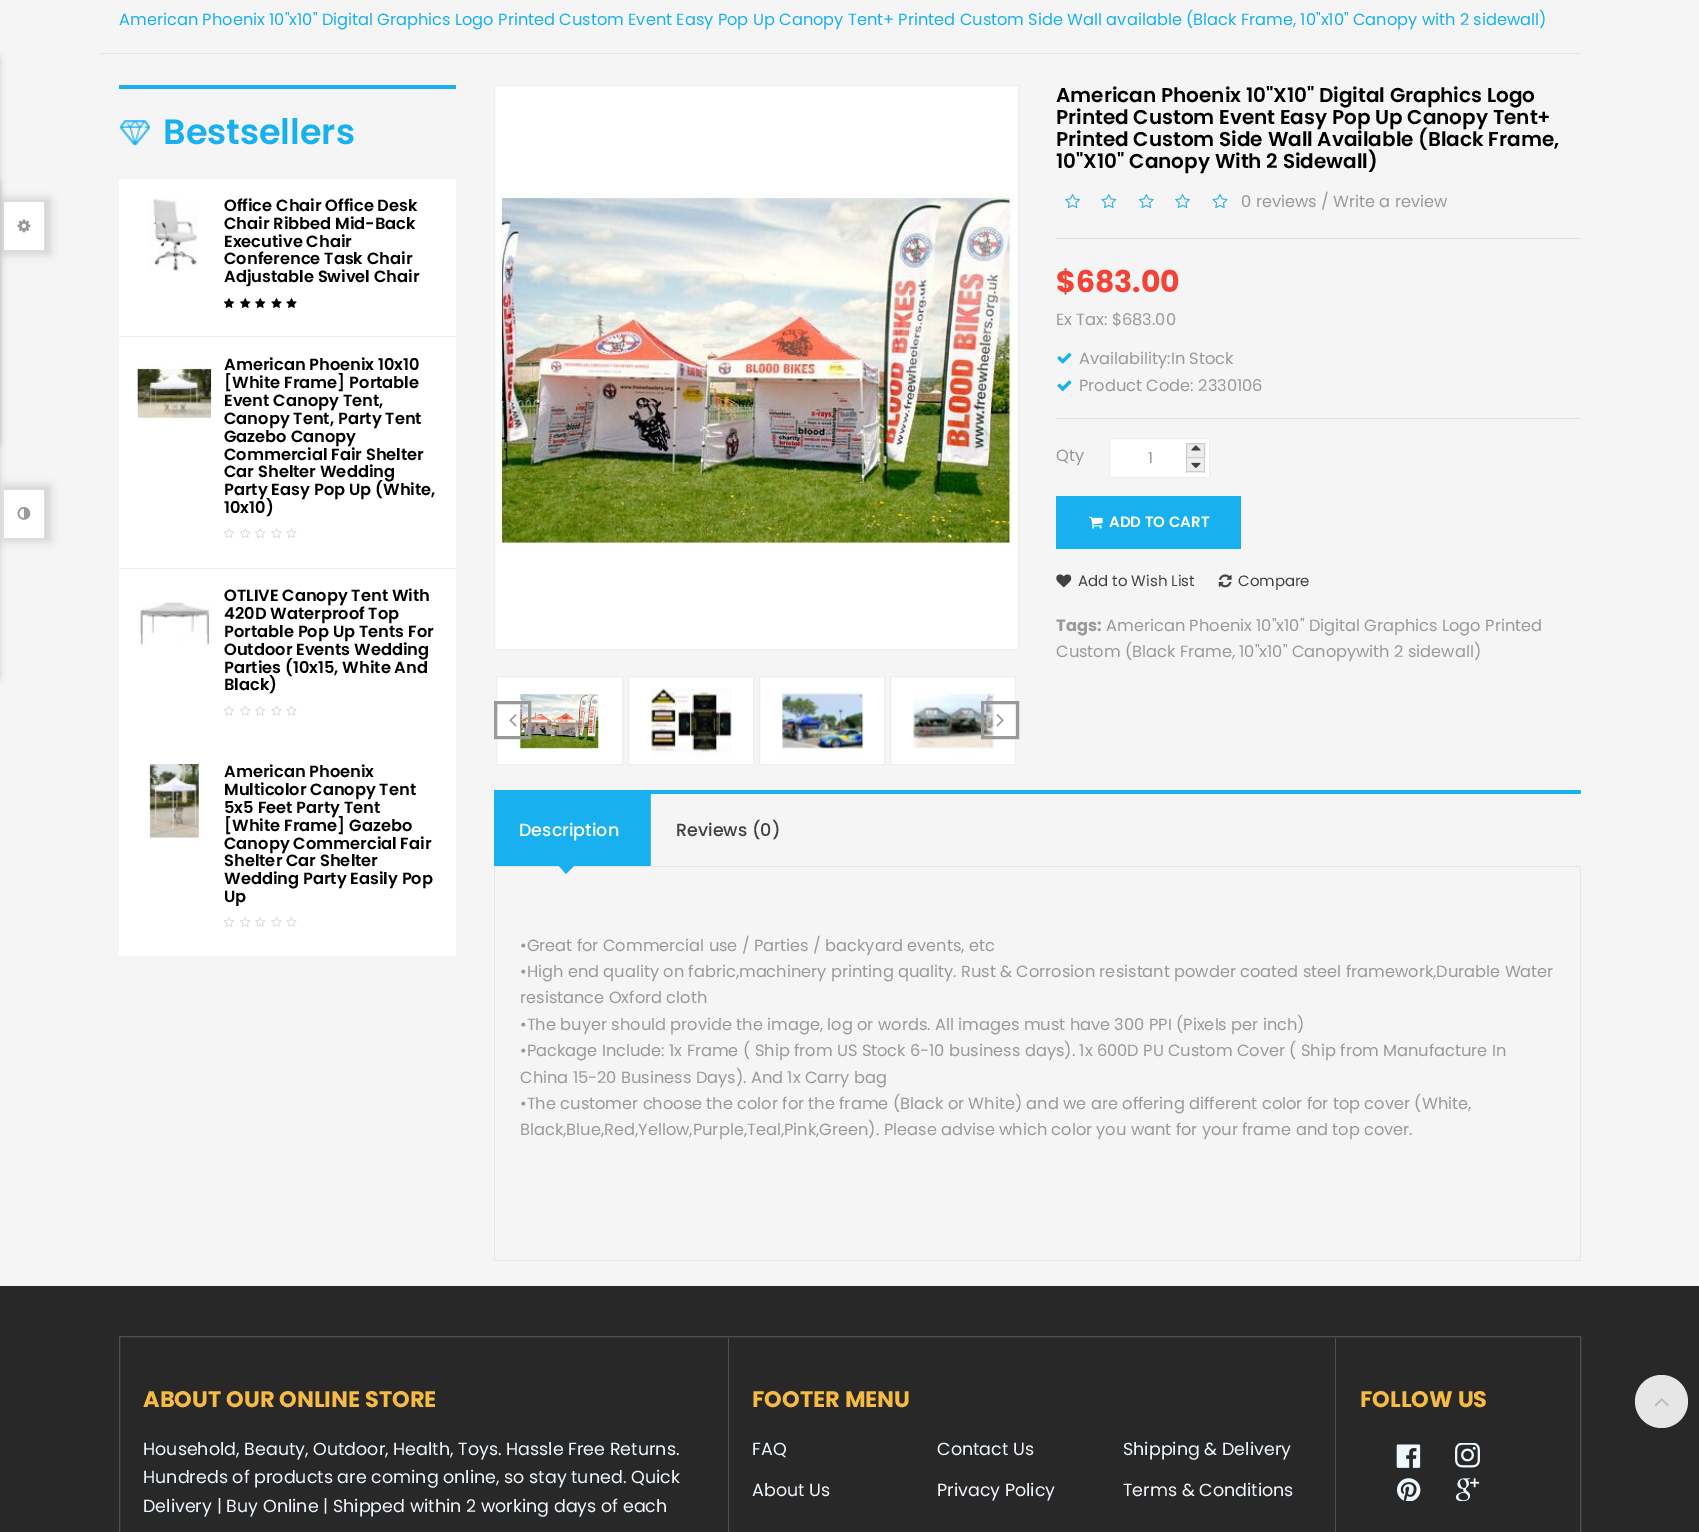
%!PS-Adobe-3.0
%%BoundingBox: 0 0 1699 1532
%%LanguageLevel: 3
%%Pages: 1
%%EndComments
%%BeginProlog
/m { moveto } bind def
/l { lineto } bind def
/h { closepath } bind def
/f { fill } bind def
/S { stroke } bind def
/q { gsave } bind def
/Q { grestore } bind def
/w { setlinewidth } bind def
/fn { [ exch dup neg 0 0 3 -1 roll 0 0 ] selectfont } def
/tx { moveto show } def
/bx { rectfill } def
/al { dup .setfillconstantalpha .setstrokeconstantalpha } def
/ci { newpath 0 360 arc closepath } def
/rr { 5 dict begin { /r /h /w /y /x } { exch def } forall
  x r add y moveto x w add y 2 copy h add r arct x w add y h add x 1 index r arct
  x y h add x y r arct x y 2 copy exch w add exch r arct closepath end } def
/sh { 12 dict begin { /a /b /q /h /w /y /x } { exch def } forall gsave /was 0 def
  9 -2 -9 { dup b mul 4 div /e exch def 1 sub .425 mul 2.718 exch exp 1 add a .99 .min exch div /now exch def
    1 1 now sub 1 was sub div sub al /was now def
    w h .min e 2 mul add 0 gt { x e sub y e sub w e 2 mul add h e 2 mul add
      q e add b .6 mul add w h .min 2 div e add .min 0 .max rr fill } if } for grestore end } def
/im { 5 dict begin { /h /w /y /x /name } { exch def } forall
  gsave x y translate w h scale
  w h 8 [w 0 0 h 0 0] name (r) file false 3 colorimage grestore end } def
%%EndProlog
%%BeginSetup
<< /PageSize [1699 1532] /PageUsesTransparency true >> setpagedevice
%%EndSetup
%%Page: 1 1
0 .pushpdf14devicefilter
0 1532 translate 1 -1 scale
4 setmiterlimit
0.961 setgray
0 0 1699 1532 bx
0.898 setgray
100 53 1481 1 bx
/Poppins-Regular 16.25 fn
0.094 0.69 0.933 setrgbcolor
(American Phoenix 10"x10" Digital Graphics Logo Printed Custom Event Easy Pop Up Canopy Tent+ Printed Custom Side Wall available \(Black Frame, 10"x10" Canopy with 2 sidewall\)) 119 25 tx
0 setgray
-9 183 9 261 0 3 0.15 sh
4 199 46 55 0 4.5 0.15 sh
1 setgray
4 202 40 48 bx
0.867 setgray
4 201 4 1 bx
44 201 1 50 bx
4 250 41 1 bx
0 setgray
-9 58 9 620 0 3 0.15 sh
4 486 46 55 0 4.5 0.15 sh
1 setgray
4 490 40 48 bx
0.867 setgray
4 489 41 1 bx
44 489 1 50 bx
4 538 4 1 bx
(image0.raw) 17 507 14 13 im
(image1.raw) 17 219 14 14 im
(image2.raw) 119 120 31 26 im
0.094 0.69 0.933 setrgbcolor
119 85 337 4 bx
/Poppins-SemiBold 35 fn
(Bestsellers) 163 144 tx
0.933 setgray
119 178 337 1 bx
1 setgray
119 179 337 389 bx
0.933 setgray
119 336 337 1 bx
(image3.raw) 148 198 50 73 im
/Poppins-SemiBold 16.25 fn
0 setgray
(Office Chair Office Desk) 224 211 tx
(Chair Ribbed Mid-Back) 224 229 tx
(Executive Chair) 224 247 tx
(Conference Task Chair) 224 264 tx
(Adjustable Swivel Chair) 224 282 tx
(image4.raw) 224 298 11 10 im
(image5.raw) 240 298 11 10 im
(image5.raw) 255 298 11 10 im
(image6.raw) 271 298 11 10 im
(image6.raw) 286 298 11 10 im
0.933 setgray
119 568 337 1 bx
(image7.raw) 137 366 75 54 im
0 setgray
(American Phoenix 10x10) 224 370 tx
([White Frame] Portable) 224 388 tx
(Event Canopy Tent,) 224 406 tx
(Canopy Tent, Party Tent) 224 424 tx
(Gazebo Canopy) 224 442 tx
(Commercial Fair Shelter) 224 460 tx
(Car Shelter Wedding) 224 477 tx
(Party Easy Pop Up \(White,) 224 495 tx
(10x10\)) 224 513 tx
(image8.raw) 224 528 10 10 im
(image9.raw) 240 528 11 10 im
(image9.raw) 255 528 11 10 im
(image10.raw) 271 528 11 10 im
(image10.raw) 286 528 11 10 im
1 setgray
119 569 337 387 bx
(image11.raw) 139 602 71 46 im
0 setgray
(OTLIVE Canopy Tent With) 224 601 tx
(420D Waterproof Top) 224 619 tx
(Portable Pop Up Tents For) 224 637 tx
(Outdoor Events Wedding) 224 655 tx
(Parties \(10x15, White And) 224 673 tx
(Black\)) 224 690 tx
(image12.raw) 224 705 10 11 im
(image13.raw) 240 705 11 11 im
(image13.raw) 255 705 11 11 im
(image14.raw) 271 705 11 11 im
(image14.raw) 286 705 11 11 im
(image15.raw) 147 764 58 74 im
(American Phoenix) 224 777 tx
(Multicolor Canopy Tent) 224 795 tx
(5x5 Feet Party Tent) 224 813 tx
([White Frame] Gazebo) 224 831 tx
(Canopy Commercial Fair) 224 849 tx
(Shelter Car Shelter) 224 866 tx
(Wedding Party Easily Pop) 224 884 tx
q
224 764 214 142 rectclip
(Up) 224 902 tx
Q
(image16.raw) 224 917 10 10 im
(image17.raw) 240 917 11 10 im
(image17.raw) 255 917 11 10 im
(image18.raw) 271 917 11 10 im
(image18.raw) 286 917 11 10 im
1 setgray
494.5 85.5 m 1018.5 85.5 l 1018.5 649.5 l 494.5 649.5 l h q f Q
0.933 setgray
S
(image19.raw) 500 193 513 358 im
1 setgray
496.5 676.5 m 622.5 676.5 l 622.5 764.5 l 496.5 764.5 l h q f Q
0.933 setgray
S
(image20.raw) 520 694 79 55 im
1 setgray
628.5 676.5 m 753.5 676.5 l 753.5 764.5 l 628.5 764.5 l h q f Q
0.933 setgray
S
(image21.raw) 651 688 81 77 im
1 setgray
759.5 676.5 m 884.5 676.5 l 884.5 764.5 l 759.5 764.5 l h q f Q
0.933 setgray
S
(image22.raw) 782 688 82 77 im
1 setgray
890.5 676.5 m 1015.5 676.5 l 1015.5 764.5 l 890.5 764.5 l h q f Q
0.933 setgray
S
(image23.raw) 913 688 82 77 im
0.6 setgray
3 w
495.5 702.5 34 35 rectstroke
(image24.raw) 509 714 8 13 im
982.5 702.5 35 35 rectstroke
(image25.raw) 996 714 8 13 im
/Poppins-SemiBold 20 fn
0 setgray
(American Phoenix 10"X10" Digital Graphics Logo) 1056 102 tx
(Printed Custom Event Easy Pop Up Canopy Tent+) 1056 124 tx
(Printed Custom Side Wall Available \(Black Frame,) 1056 146 tx
(10"X10" Canopy With 2 Sidewall\)) 1056 168 tx
(image26.raw) 1065 193 15 16 im
(image27.raw) 1101 193 16 16 im
(image28.raw) 1138 193 16 16 im
(image26.raw) 1175 193 15 16 im
(image29.raw) 1212 193 16 16 im
/Poppins-Regular 16.25 fn
0.6 setgray
(0 reviews / Write a review) 1241 207 tx
0.882 setgray
1056 238 525 1 bx
/Poppins-Bold 30 fn
0.957 0.263 0.212 setrgbcolor
($683.00) 1056 292 tx
/Poppins-Regular 16.25 fn
0.6 setgray
(Ex Tax: $683.00) 1056 325 tx
(image30.raw) 1057 352 15 12 im
(Availability:In Stock) 1079 364 tx
(image31.raw) 1057 380 15 12 im
(Product Code: 2330106) 1079 391 tx
0.882 setgray
1056 418 525 1 bx
0.6 setgray
(Qty) 1056 461 tx
1 setgray
1109.5 438.5 m 1209.5 438.5 l 1209.5 477.5 l 1109.5 477.5 l h q f Q
0.933 setgray
1 w
S
/Poppins-Regular 15 fn
0.6 setgray
(1) 1148 463 tx
0.929 setgray
1186.5 443.5 m 1204.5 443.5 l 1204.5 457.5 l 1186.5 457.5 l h q f Q
0.8 setgray
S
(image32.raw) 1191 445 10 6 im
0.929 setgray
1187 458 17 15 bx
0.8 setgray
1204 458 1 15 bx
1186 471 19 1 bx
1186 458 1 15 bx
(image33.raw) 1191 462 10 6 im
0.094 0.69 0.933 setrgbcolor
1056 496 185 53 bx
(image34.raw) 1088 516 15 13 im
/Poppins-SemiBold 15 fn
1 setgray
(ADD TO CART) 1109 527 tx
(image35.raw) 1056 574 16 14 im
/Poppins-Regular 15 fn
0.255 setgray
(Add to Wish List) 1078 586 tx
(image36.raw) 1218 574 14 14 im
(Compare) 1238 586 tx
/Poppins-Bold 16.25 fn
0.6 setgray
(Tags:) 1056 631 tx
/Poppins-Regular 16.25 fn
(American Phoenix 10"x10" Digital Graphics Logo Printed) 1106 631 tx
(Custom \(Black Frame, 10"x10" Canopywith 2 sidewall\)) 1056 657 tx
0.094 0.69 0.933 setrgbcolor
494 790 1087 4 bx
0.898 setgray
494 866 1087 1 bx
0.094 0.69 0.933 setrgbcolor
494 794 156 72 bx
0.275 0.753 0.945 setrgbcolor
650 794 1 72 bx
/Poppins-Medium 17.5 fn
1 setgray
(Description) 519 836 tx
0.094 0.69 0.933 setrgbcolor
559 866 m 574 866 l 566 874 l h f
0.255 setgray
(Reviews \(0\)) 676 836 tx
0.898 setgray
1580 868 1 393 bx
494 1260 1087 1 bx
494 868 1 393 bx
/Poppins-Regular 16.25 fn
0.6 setgray
(•Great for Commercial use / Parties / backyard events, etc) 520 951 tx
(•High end quality on fabric,machinery printing quality. Rust & Corrosion resistant powder coated steel framework,Durable Water) 520 977 tx
(resistance Oxford cloth) 520 1003 tx
(•The buyer should provide the image, log or words. All images must have 300 PPI \(Pixels per inch\)) 520 1030 tx
(•Package Include: 1x Frame \( Ship from US Stock 6-10 business days\). 1x 600D PU Custom Cover \( Ship from Manufacture In) 520 1056 tx
(China 15-20 Business Days\). And 1x Carry bag) 520 1083 tx
(•The customer choose the color for the frame \(Black or White\) and we are offering different color for top cover \(White,) 520 1109 tx
(Black,Blue,Red,Yellow,Purple,Teal,Pink,Green\). Please advise which color you want for your frame and top cover.) 520 1135 tx
0.157 setgray
0 1286 1699 246 bx
0.314 setgray
119.5 1336.5 1461 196 rectstroke
728 1338 1 194 bx
/Poppins-Bold 22.5 fn
0.965 0.733 0.259 setrgbcolor
(ABOUT OUR ONLINE STORE) 143 1407 tx
/Poppins-Regular 17.5 fn
0.941 0.973 1 setrgbcolor
(Household, Beauty, Outdoor, Health, Toys. Hassle Free Returns.) 143 1455 tx
(Hundreds of products are coming online, so stay tuned. Quick) 143 1483 tx
(Delivery | Buy Online | Shipped within 2 working days of each) 143 1512 tx
0.314 setgray
1335 1338 1 194 bx
/Poppins-Bold 22.5 fn
0.965 0.733 0.259 setrgbcolor
(FOOTER MENU) 752 1407 tx
/Poppins-Regular 17.5 fn
0.941 0.973 1 setrgbcolor
(FAQ) 752 1455 tx
(About Us) 752 1496 tx
(Contact Us) 937 1455 tx
(Privacy Policy) 937 1496 tx
(Shipping & Delivery) 1123 1455 tx
(Terms & Conditions) 1123 1496 tx
/Poppins-Bold 22.5 fn
0.965 0.733 0.259 setrgbcolor
(FOLLOW US) 1360 1407 tx
(image37.raw) 1396 1444 25 24 im
(image38.raw) 1455 1443 25 25 im
(image39.raw) 1397 1478 24 23 im
(image40.raw) 1455 1478 25 23 im
0.902 setgray
1661.5 1401.5 26.5 ci f
(image41.raw) 1655 1398 14 9 im
.poppdf14devicefilter showpage
%%EOF
